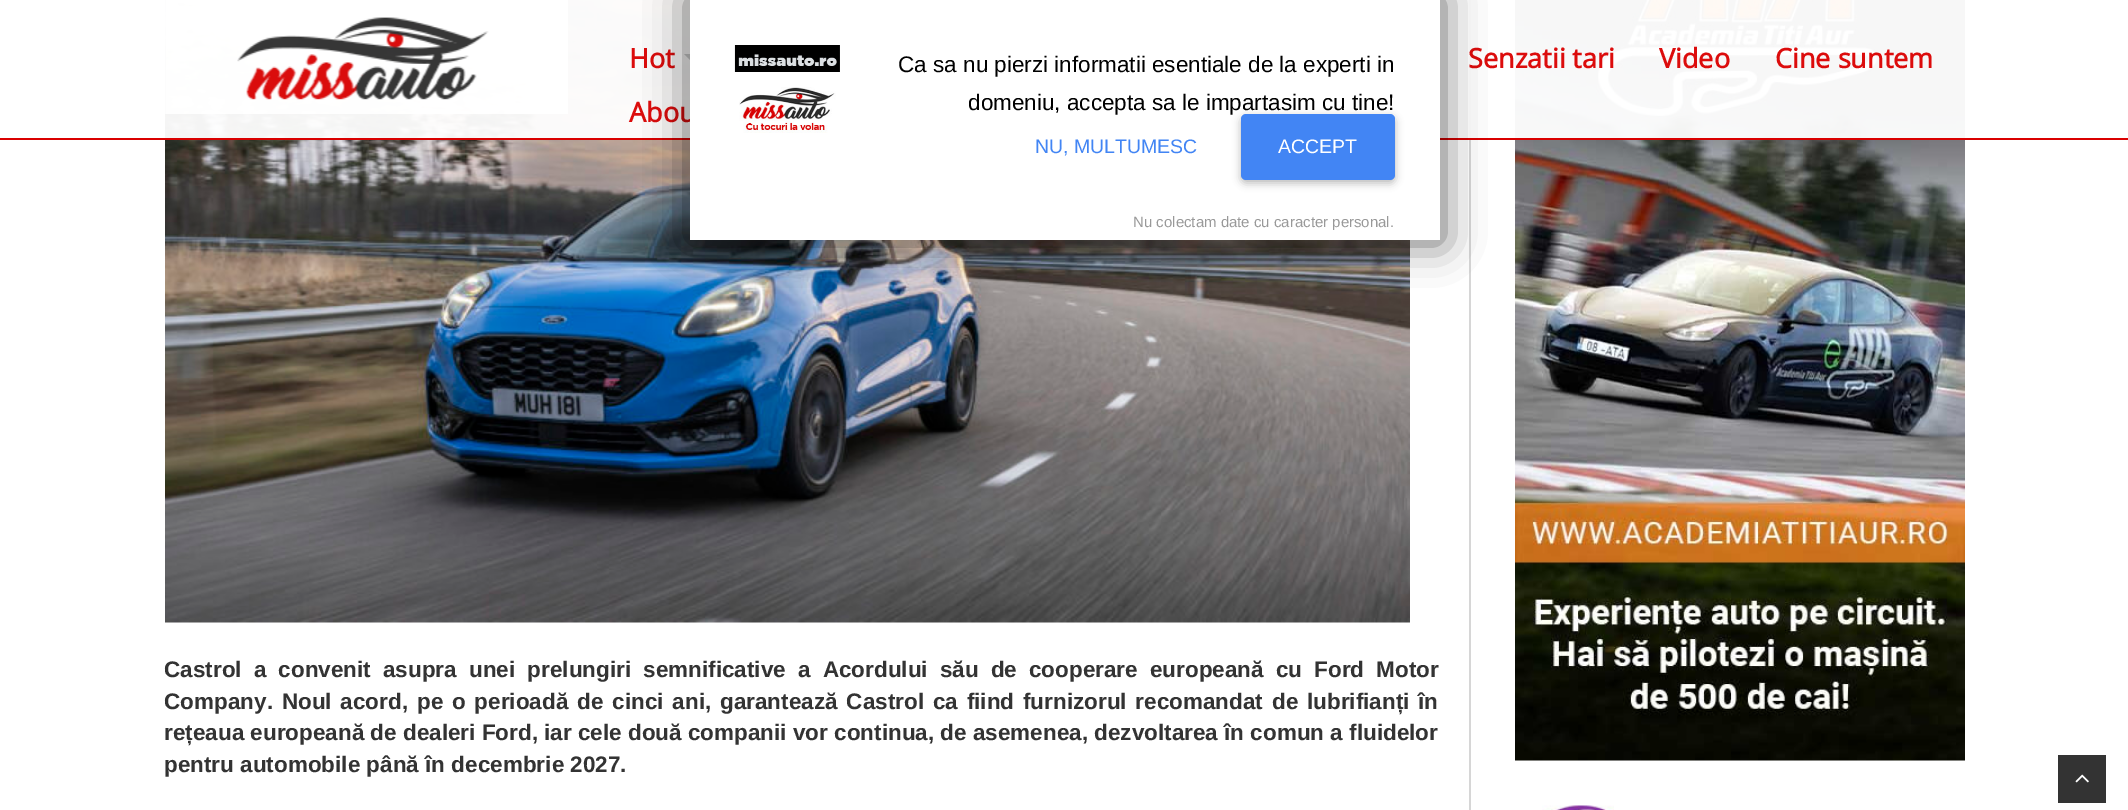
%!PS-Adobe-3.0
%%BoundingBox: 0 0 2128 810
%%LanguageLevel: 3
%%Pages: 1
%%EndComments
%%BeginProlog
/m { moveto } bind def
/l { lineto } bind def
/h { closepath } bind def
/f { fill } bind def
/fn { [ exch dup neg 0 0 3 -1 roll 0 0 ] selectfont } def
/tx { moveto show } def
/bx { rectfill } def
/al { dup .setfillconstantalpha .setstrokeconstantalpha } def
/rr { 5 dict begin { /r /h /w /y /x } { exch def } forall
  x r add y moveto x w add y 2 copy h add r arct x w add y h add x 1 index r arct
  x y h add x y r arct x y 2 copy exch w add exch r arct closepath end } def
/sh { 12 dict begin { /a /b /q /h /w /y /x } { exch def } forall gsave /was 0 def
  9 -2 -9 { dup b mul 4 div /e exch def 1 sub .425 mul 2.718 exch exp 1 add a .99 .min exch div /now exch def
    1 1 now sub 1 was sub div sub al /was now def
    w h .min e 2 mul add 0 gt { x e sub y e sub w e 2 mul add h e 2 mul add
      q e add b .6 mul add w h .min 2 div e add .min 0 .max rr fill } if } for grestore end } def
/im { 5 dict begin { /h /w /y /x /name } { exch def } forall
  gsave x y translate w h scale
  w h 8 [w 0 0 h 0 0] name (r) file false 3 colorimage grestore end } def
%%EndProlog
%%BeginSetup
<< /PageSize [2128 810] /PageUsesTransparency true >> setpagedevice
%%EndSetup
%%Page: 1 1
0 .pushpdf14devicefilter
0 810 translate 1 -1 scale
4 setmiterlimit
1 setgray
0 0 2128 810 bx
0.839 setgray
1469 0 2 810 bx
(image1.raw) 165 0 1245 623 im
(image2.raw) 1515 0 450 761 im
0.855 0 0 setrgbcolor
0 138 2128 2 bx
0.95 al
1 setgray
165 0 1800 138 bx
1 al
(image0.raw) 165 0 403 114 im
/OpenSans-Bold 27 fn
0.863 0.047 0.047 setrgbcolor
(Hot) 629 68 tx
0.808 setgray
684 54 m 699 54 l 691.5 61.5 l h f
0.863 0.047 0.047 setrgbcolor
(Senzatii tari) 1468 68 tx
(Video) 1659 68 tx
(Cine suntem) 1775 68 tx
(Abou) 629 122 tx
/LiberationSans-Bold 22.5 fn
0.2 setgray
164 677 m 5.9 0 32 (Castrol a convenit asupra unei prelungiri semnificative a Acordului său de cooperare europeană cu Ford Motor) widthshow
164 709 m 2.6 0 32 (Company. Noul acord, pe o perioadă de cinci ani, garantează Castrol ca fiind furnizorul recomandat de lubrifianți în) widthshow
(rețeaua europeană de dealeri Ford, iar cele două companii vor continua, de asemenea, dezvoltarea în comun a fluidelor) 164 740 tx
(pentru automobile până în decembrie 2027.) 164 772 tx
(image3.raw) 1542 805 72 5 im
0 setgray
687 -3 756 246 0 20 0.58 sh
1 setgray
690 0 750 240 bx
(image4.raw) 734 45 106 88 im
/LiberationSans-Regular 22.5 fn
0 setgray
(Ca sa nu pierzi informatii esentiale de la experti in) 898 72 tx
(domeniu, accepta sa le impartasim cu tine!) 968 110 tx
/LiberationSans-Regular 19.5 fn
0.259 0.522 0.957 setrgbcolor
(NU, MULTUMESC) 1035 153 tx
0 setgray
1241 117 154 66 5 4.5 0.12 sh
1241 117 154 66 5 4 0.16 sh
0.259 0.522 0.957 setrgbcolor
1241 114 154 66 5 rr f
1 setgray
(ACCEPT) 1278 153 tx
/LiberationSans-Regular 15 fn
0.6 setgray
(Nu colectam date cu caracter personal.) 1133 227 tx
0.2 setgray
2058 755 48 48 bx
(image5.raw) 2075 774 14 9 im
.poppdf14devicefilter showpage
%%EOF
